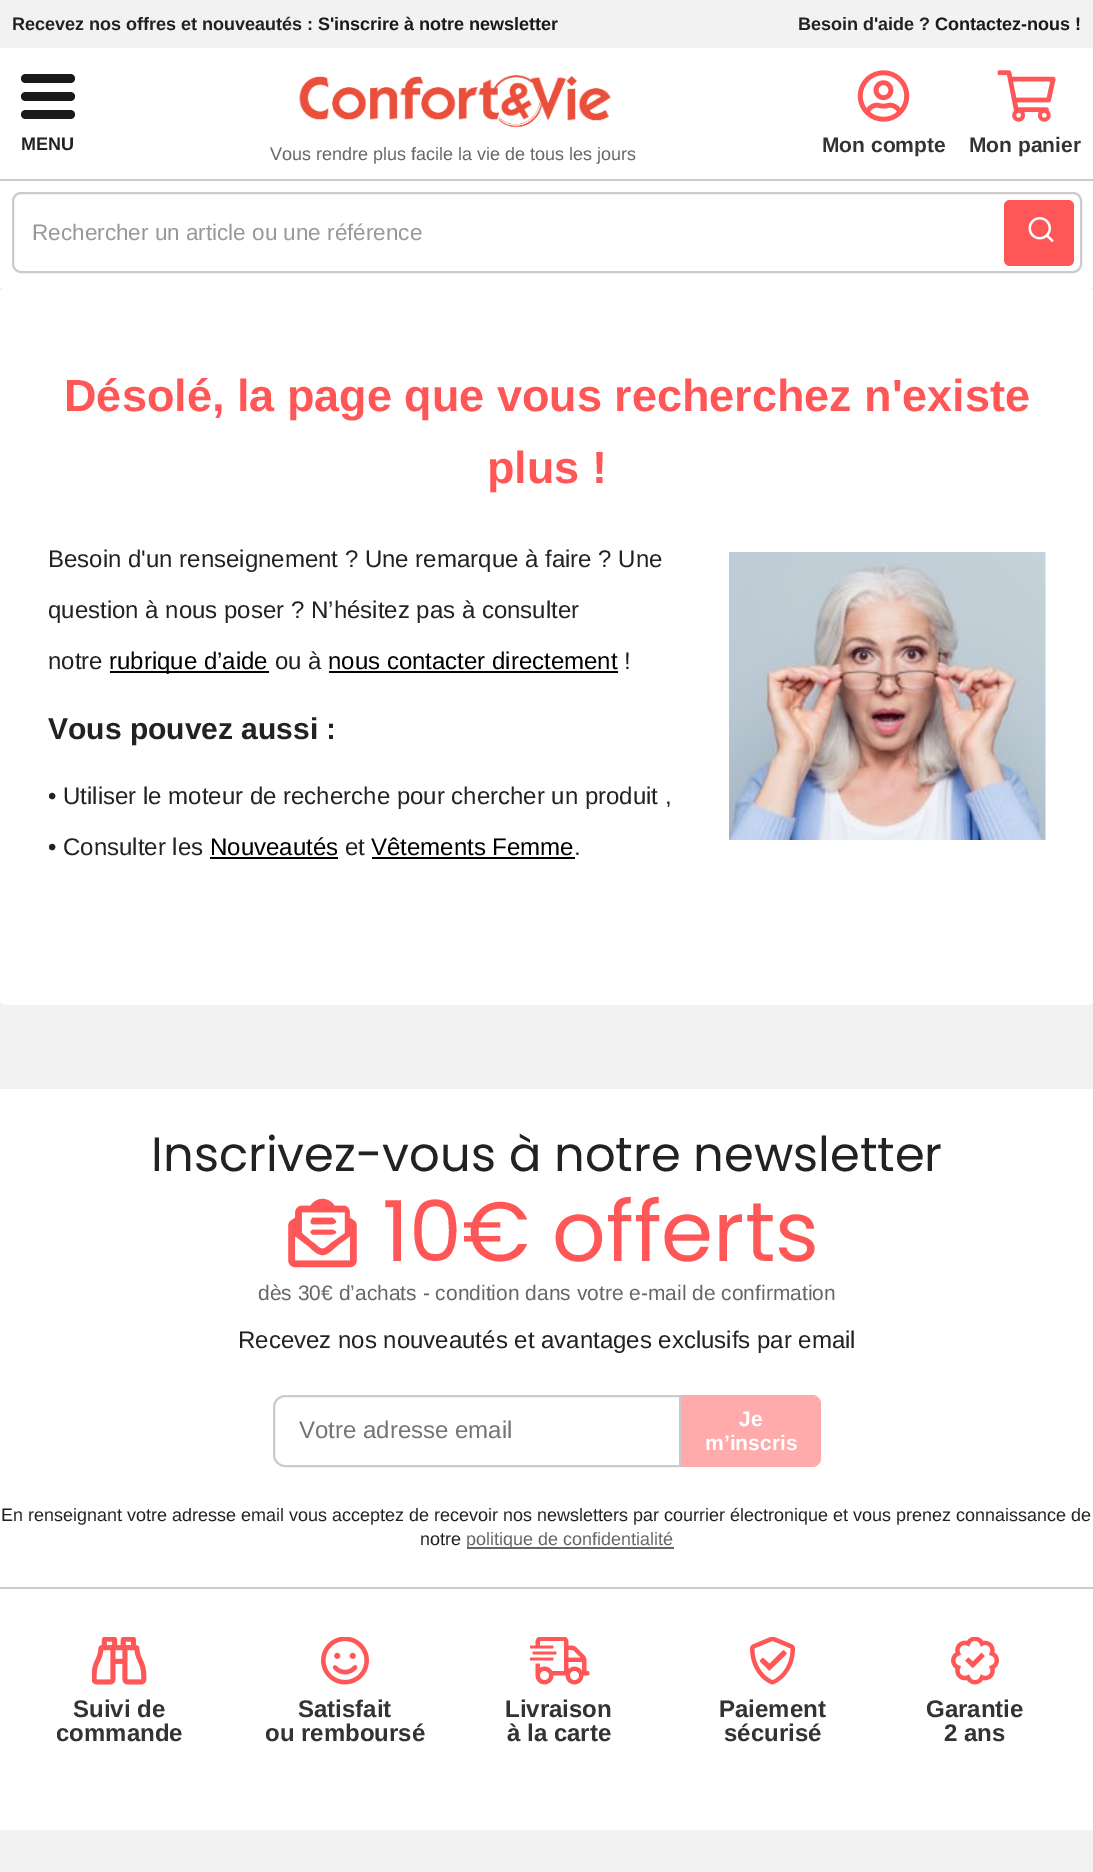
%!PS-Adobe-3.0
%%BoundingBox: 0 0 1093 1872
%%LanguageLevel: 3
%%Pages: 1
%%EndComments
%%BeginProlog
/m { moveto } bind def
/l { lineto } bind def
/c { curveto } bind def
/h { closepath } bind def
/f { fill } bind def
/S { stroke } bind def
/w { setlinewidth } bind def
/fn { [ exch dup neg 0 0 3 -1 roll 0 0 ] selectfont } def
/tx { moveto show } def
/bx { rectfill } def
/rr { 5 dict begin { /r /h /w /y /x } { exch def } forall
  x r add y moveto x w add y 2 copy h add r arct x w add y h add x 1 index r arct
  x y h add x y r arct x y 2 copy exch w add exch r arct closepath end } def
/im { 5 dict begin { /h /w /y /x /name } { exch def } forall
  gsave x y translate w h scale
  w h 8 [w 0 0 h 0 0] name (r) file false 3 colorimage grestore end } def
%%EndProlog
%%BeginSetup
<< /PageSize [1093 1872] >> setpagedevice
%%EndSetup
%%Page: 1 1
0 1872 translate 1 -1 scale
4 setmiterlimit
0.949 setgray
0 0 1093 1872 bx
/LiberationSans-Bold 18 fn
0.133 setgray
(Recevez nos offres et nouveautés :) 12 30 tx
0.102 setgray
(S'inscrire à notre newsletter) 318 30 tx
0.133 setgray
(Besoin d'aide ?) 798 30 tx
0.102 setgray
(Contactez-nous !) 935 30 tx
1 setgray
0 48 1093 240 bx
0.102 setgray
21 74 54 9 4.5 rr f
21 92 54 9 4.5 rr f
21 110 54 9 4.5 rr f
0.133 setgray
(MENU) 21 150 tx
(image0.raw) 299 75 312 53 im
/LiberationSans-Regular 18 fn
0.4 setgray
(Vous rendre plus facile la vie de tous les jours) 270 160 tx
(image1.raw) 857 70 53 52 im
/LiberationSans-Bold 21 fn
0.2 setgray
(Mon compte) 822 152 tx
(image2.raw) 997 70 59 52 im
(Mon panier) 969 152 tx
0.796 setgray
0 179 1093 2 bx
2 w
13 193 1068 79 8 rr S
/LiberationSans-Regular 22.5 fn
0.6 setgray
(Rechercher un article ou une référence) 32 240 tx
1 0.341 0.341 setrgbcolor
1004 200 70 66 6 rr f
(image3.raw) 1028 217 26 25 im
1 setgray
0 288 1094 717 6 rr f
/LiberationSans-Bold 45 fn
1 0.341 0.341 setrgbcolor
(Désolé, la page que vous recherchez n'existe) 64 411 tx
(plus !) 487 483 tx
/LiberationSans-Regular 24 fn
0.133 setgray
(Besoin d'un renseignement ? Une remarque à faire ? Une) 48 567 tx
(question à nous poser ? N’hésitez pas à consulter) 48 618 tx
(notre) 48 669 tx
0 setgray
110 671 159 2 bx
(rubrique d’aide) 109 669 tx
0.133 setgray
(ou à) 275 669 tx
0 setgray
(nous contacter directement) 328 669 tx
329 671 289 2 bx
0.133 setgray
(!) 624 669 tx
/LiberationSans-Bold 30 fn
(Vous pouvez aussi :) 48 739 tx
/LiberationSans-Regular 24 fn
(• Utiliser le moteur de recherche pour chercher un produit ,) 48 804 tx
(• Consulter les) 48 855 tx
0 setgray
(Nouveautés) 210 855 tx
210 857 128 2 bx
0.133 setgray
(et) 345 855 tx
0 setgray
(Vêtements Femme) 371 855 tx
372 857 203 2 bx
0.133 setgray
(.) 574 855 tx
(image4.raw) 729 552 317 288 im
1 setgray
0 1089 1093 741 bx
/Poppins-Regular 48 fn
0.133 setgray
(Inscrivez-vous à notre newsletter) 151 1171 tx
(image5.raw) 288 1198 69 70 im
/Poppins-Regular 84 fn
1 0.341 0.341 setrgbcolor
(10€ offerts) 382 1261 tx
/LiberationSans-Regular 21 fn
0.4 setgray
(dès 30€ d’achats - condition dans votre e-mail de confirmation) 258 1300 tx
/LiberationSans-Regular 24 fn
0.133 setgray
(Recevez nos nouveautés et avantages exclusifs par email) 238 1348 tx
0.796 setgray
285 1396 m 680 1396 l 680 1466 l 285 1466 l 279 1466 274 1461 274 1455 c 274 1407 l 274 1401 279 1396 285 1396 c h S
0.459 setgray
(Votre adresse email) 299 1438 tx
1 0.671 0.671 setrgbcolor
681 1395 m 812 1395 l 817 1395 821 1399 821 1404 c 821 1458 l 821 1463 817 1467 812 1467 c 681 1467 l h f
/LiberationSans-Bold 21 fn
1 setgray
(Je) 739 1426 tx
(m’inscris) 705 1450 tx
/LiberationSans-Regular 18 fn
0.133 setgray
(En renseignant votre adresse email vous acceptez de recevoir nos newsletters par courrier électronique et vous prenez connaissance de) 1 1521 tx
(notre) 420 1545 tx
0.4 setgray
467 1547 207 2 bx
(politique de confidentialité) 466 1545 tx
0.796 setgray
0 1587 1093 2 bx
(image6.raw) 92 1637 55 48 im
/LiberationSans-Bold 24 fn
0.2 setgray
(Suivi de) 73 1717 tx
(commande) 56 1741 tx
(image7.raw) 321 1637 48 48 im
(Satisfait) 298 1717 tx
(ou remboursé) 265 1741 tx
(image8.raw) 530 1637 60 48 im
(Livraison) 505 1717 tx
(à la carte) 507 1741 tx
(image9.raw) 750 1637 45 48 im
(Paiement) 719 1717 tx
(sécurisé) 724 1741 tx
(image10.raw) 951 1637 48 48 im
(Garantie) 926 1717 tx
(2 ans) 944 1741 tx
showpage
%%EOF
